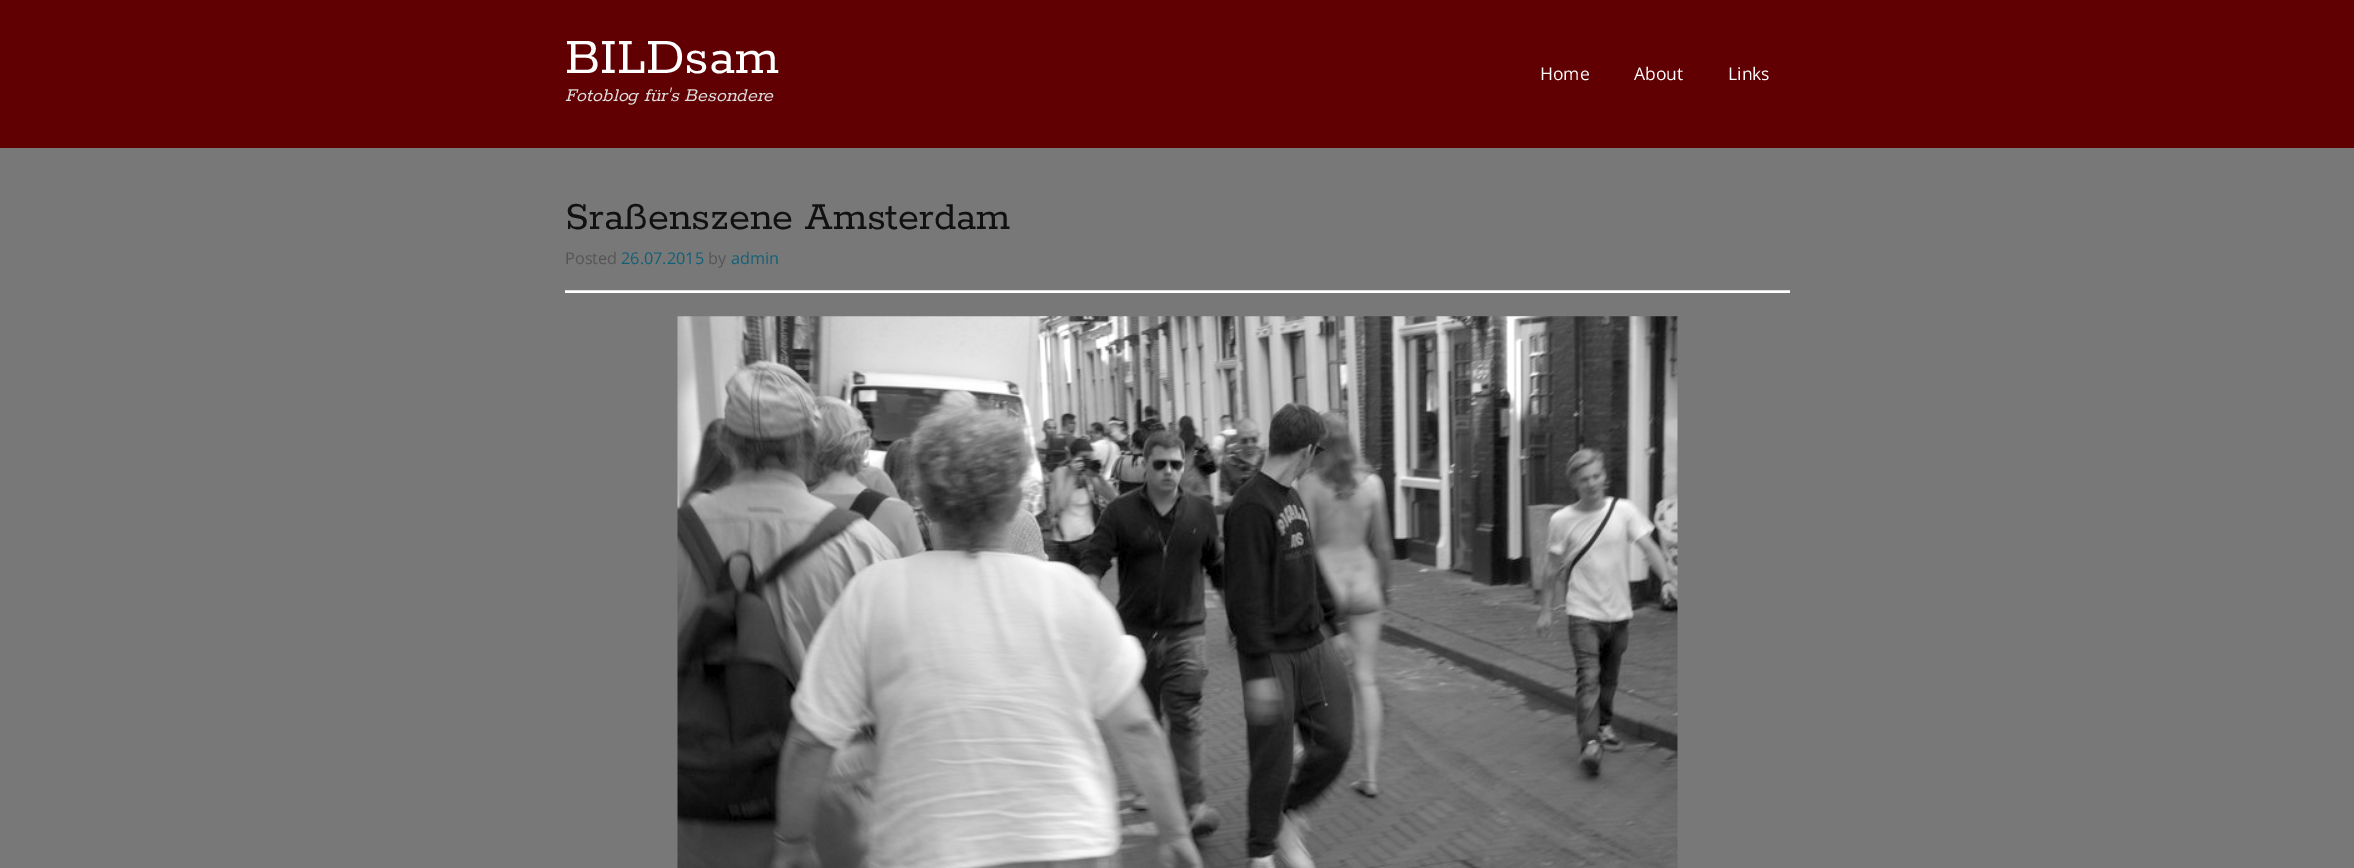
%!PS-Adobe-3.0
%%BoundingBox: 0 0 2354 868
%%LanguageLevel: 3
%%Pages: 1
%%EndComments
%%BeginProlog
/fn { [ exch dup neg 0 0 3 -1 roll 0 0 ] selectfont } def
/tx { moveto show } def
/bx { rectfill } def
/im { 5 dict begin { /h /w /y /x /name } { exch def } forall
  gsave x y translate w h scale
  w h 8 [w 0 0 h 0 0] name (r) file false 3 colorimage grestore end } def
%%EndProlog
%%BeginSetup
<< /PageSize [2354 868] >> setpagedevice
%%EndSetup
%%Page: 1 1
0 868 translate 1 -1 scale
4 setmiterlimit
0.471 setgray
0 0 2354 868 bx
0.376 0 0.012 setrgbcolor
0 0 2354 148 bx
/Rokkitt-Regular 55 fn
1 setgray
(BILDsam) 565 73 tx
/Rokkitt-Italic 20 fn
0.867 setgray
(Fotoblog für's Besondere) 565 101 tx
/OpenSans-Regular 17.5 fn
1 setgray
(Home) 1540 80 tx
(About) 1634 80 tx
(Links) 1728 80 tx
565 291 1225 2 bx
0.867 setgray
565 290 1225 1 bx
/Rokkitt-Regular 42.5 fn
0.067 setgray
(Sraßenszene Amsterdam) 565 229 tx
/OpenSans-Regular 16.25 fn
0.333 setgray
(Posted) 565 264 tx
0.063 0.38 0.467 setrgbcolor
(26.07.2015) 621 264 tx
0.333 setgray
(by) 708 264 tx
0.063 0.38 0.467 setrgbcolor
(admin) 731 264 tx
(image0.raw) 677 316 1001 552 im
showpage
%%EOF
